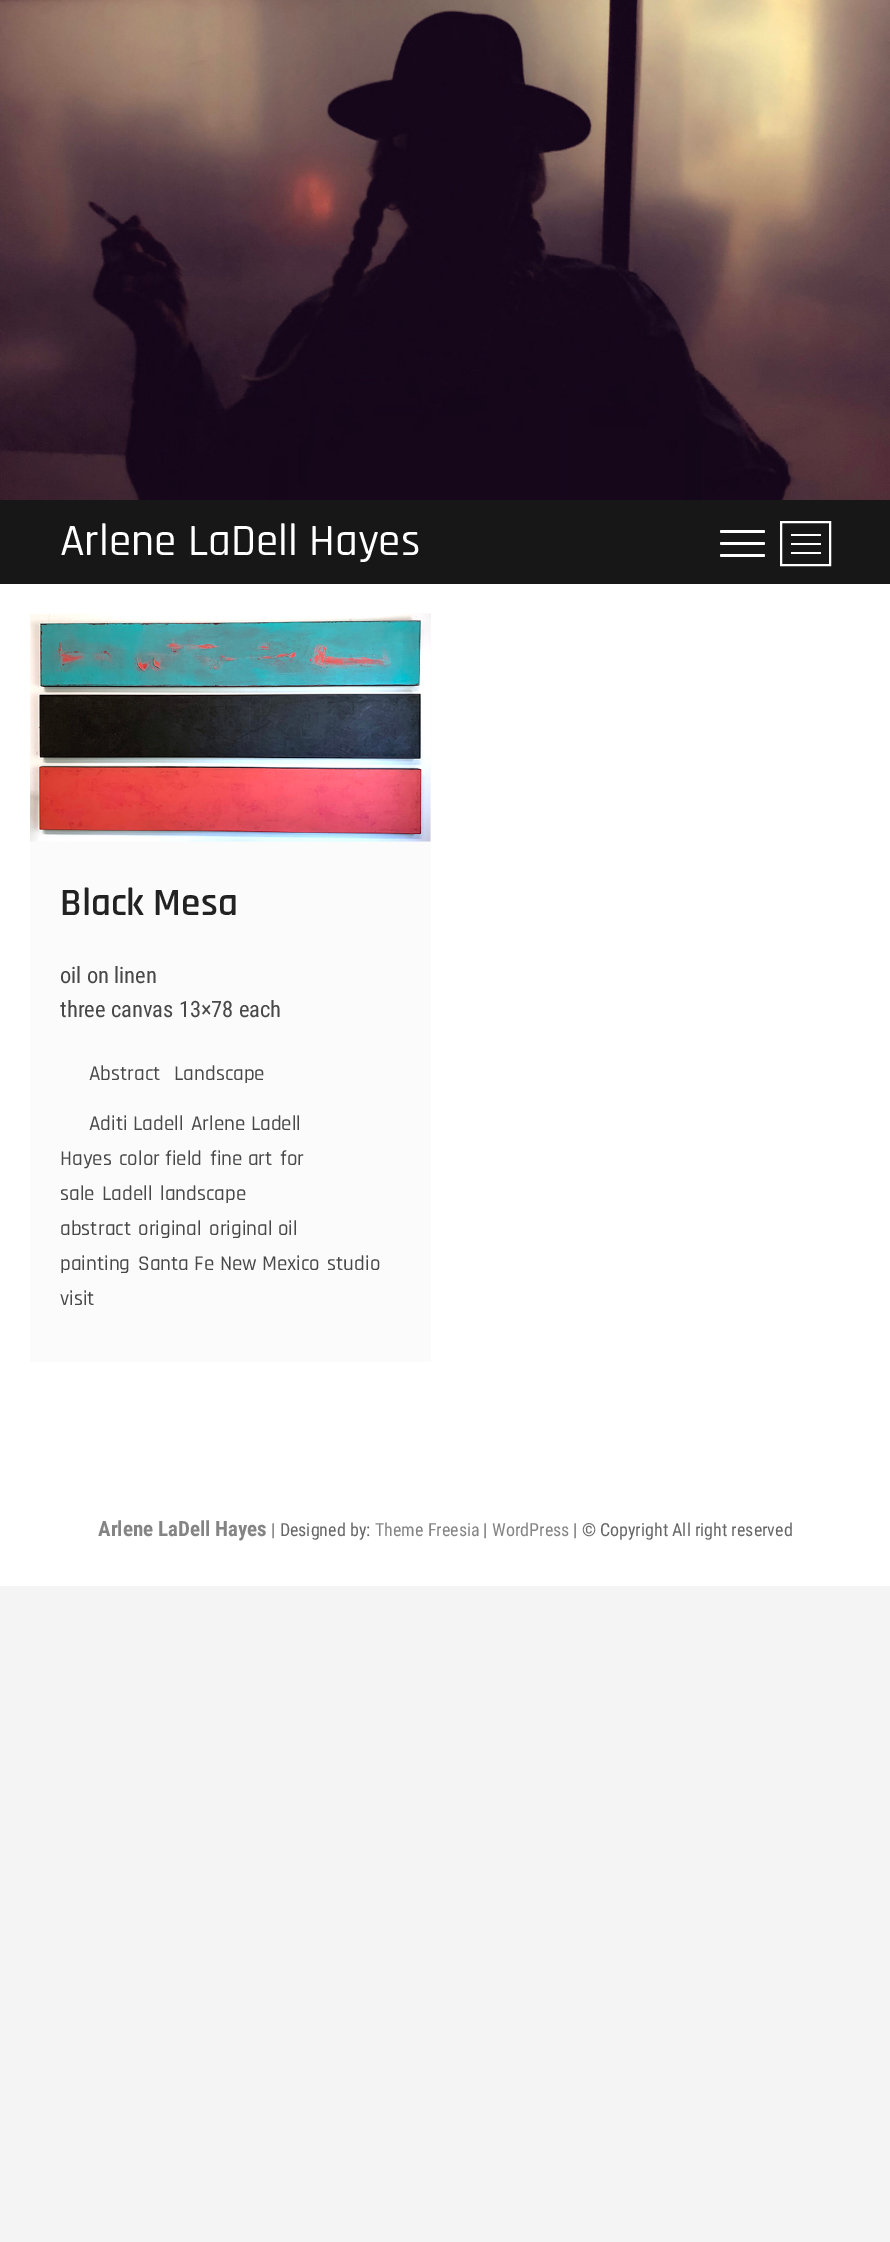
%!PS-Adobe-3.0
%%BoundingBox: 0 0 890 2242
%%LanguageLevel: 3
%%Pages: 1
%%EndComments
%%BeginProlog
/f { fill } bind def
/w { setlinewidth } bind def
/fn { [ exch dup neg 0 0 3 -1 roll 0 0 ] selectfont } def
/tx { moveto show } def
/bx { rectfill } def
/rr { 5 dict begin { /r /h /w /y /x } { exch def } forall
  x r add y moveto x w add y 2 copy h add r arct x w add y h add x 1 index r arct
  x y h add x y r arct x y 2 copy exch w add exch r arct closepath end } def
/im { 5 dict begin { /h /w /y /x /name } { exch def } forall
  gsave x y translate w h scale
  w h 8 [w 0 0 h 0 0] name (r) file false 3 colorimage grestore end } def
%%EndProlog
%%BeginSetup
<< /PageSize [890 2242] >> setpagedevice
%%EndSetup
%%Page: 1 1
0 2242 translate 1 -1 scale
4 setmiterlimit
0.957 setgray
0 0 890 2242 bx
1 setgray
0 584 890 1002 bx
(image0.raw) 0 0 890 500 im
0.09 setgray
0 500 890 84 bx
/Rajdhani-Medium 45 fn
1 setgray
(Arlene LaDell Hayes) 60 555 tx
720 542 45 3 1.5 rr f
720 530 45 3 1.5 rr f
720 554 45 3 1.5 rr f
2 w
781 522 49 43 rectstroke
791 543 30 2 bx
791 534 30 2 bx
791 552 30 2 bx
0.984 setgray
30 614 401 748 bx
(image1.raw) 30 613 401 229 im
/Rajdhani-SemiBold 39 fn
0.133 setgray
(Black Mesa) 60 915 tx
/RobotoCondensed-Regular 22.5 fn
0.282 setgray
(oil on linen) 60 983 tx
(three canvas 13×78 each) 60 1017 tx
/Rajdhani-Medium 21 fn
(Abstract) 89 1080 tx
(Landscape) 174 1080 tx
(Aditi Ladell) 89 1130 tx
(Arlene Ladell) 191 1130 tx
(Hayes) 60 1165 tx
(color field) 119 1165 tx
(fine art) 210 1165 tx
(for) 280 1165 tx
(sale) 60 1200 tx
(Ladell) 102 1200 tx
(landscape) 160 1200 tx
(abstract) 60 1235 tx
(original) 138 1235 tx
(original oil) 209 1235 tx
(painting) 60 1270 tx
(Santa Fe New Mexico) 138 1270 tx
(studio) 327 1270 tx
(visit) 60 1305 tx
/RobotoCondensed-Bold 21 fn
0.518 setgray
(Arlene LaDell Hayes) 98 1536 tx
/RobotoCondensed-Regular 18 fn
0.4 setgray
(| Designed by:) 271 1536 tx
0.518 setgray
(Theme Freesia) 375 1536 tx
0.4 setgray
(|) 483 1536 tx
0.518 setgray
(WordPress) 492 1536 tx
0.4 setgray
(| © Copyright All right reserved) 573 1536 tx
showpage
%%EOF
